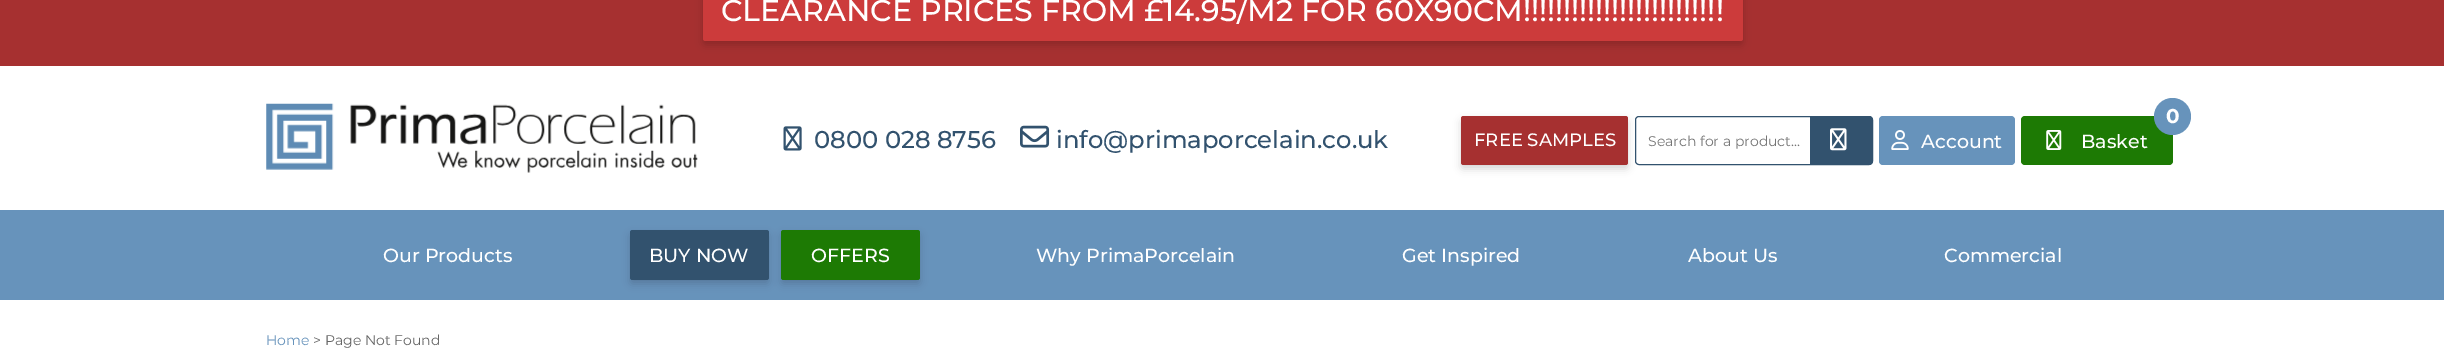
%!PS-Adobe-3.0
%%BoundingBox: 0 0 2444 364
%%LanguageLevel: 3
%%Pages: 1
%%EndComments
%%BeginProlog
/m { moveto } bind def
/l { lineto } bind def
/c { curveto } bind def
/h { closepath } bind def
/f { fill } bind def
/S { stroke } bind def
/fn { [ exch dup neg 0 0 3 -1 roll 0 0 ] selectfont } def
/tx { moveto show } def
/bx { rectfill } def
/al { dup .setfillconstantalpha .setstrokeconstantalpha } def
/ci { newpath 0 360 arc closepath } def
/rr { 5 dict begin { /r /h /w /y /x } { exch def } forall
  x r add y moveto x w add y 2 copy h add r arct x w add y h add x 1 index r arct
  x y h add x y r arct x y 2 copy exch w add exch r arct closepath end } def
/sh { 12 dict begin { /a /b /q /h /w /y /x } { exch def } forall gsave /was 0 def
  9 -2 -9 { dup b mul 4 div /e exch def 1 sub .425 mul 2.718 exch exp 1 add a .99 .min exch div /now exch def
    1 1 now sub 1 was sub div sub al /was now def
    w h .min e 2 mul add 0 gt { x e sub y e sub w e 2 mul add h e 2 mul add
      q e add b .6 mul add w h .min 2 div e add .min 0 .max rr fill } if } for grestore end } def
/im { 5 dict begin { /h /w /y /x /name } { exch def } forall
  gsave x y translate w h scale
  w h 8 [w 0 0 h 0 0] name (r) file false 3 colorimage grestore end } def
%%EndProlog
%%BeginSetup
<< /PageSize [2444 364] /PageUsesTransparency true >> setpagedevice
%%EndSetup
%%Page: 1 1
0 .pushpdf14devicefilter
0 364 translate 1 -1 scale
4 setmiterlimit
1 setgray
0 0 2444 364 bx
0.651 0.188 0.188 setrgbcolor
0 0 2444 66 bx
0 setgray
703 -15 1040 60 2.5 4 0.16 sh
0.8 0.231 0.231 setrgbcolor
703 -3 1040 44 2.5 rr f
/Montserrat-Medium 30 fn
1 setgray
(CLEARANCE PRICES FROM £14.95/M2 FOR 60X90CM!!!!!!!!!!!!!!!!!!!!!!!!!) 721 21 tx
(image0.raw) 266 103 432 70 im
(image1.raw) 783 126 19 25 im
/Montserrat-Medium 24.25 fn
0.196 0.322 0.431 setrgbcolor
(0800 028 8756) 814 148 tx
(image2.raw) 1020 125 30 23 im
(info@primaporcelain.co.uk) 1056 148 tx
0 setgray
1461 120 167 49 2.5 4 0.16 sh
0.651 0.188 0.188 setrgbcolor
1461 116 167 49 2.5 rr f
/Montserrat-Medium 18 fn
1 setgray
(FREE SAMPLES) 1474 146 tx
0.196 0.322 0.431 setrgbcolor
1635.5 116.5 237 48 3.5 rr S
/Montserrat-Regular 14 fn
0.459 setgray
(Search for a product...) 1648 146 tx
0.196 0.322 0.431 setrgbcolor
1810 116 m 1869 116 l 1871 116 1873 118 1873 120 c 1873 161 l 1873 163 1871 165 1869 165 c 1810 165 l h f
(image3.raw) 1830 128 17 23 im
0.404 0.576 0.733 setrgbcolor
1879 116 136 49 4 rr f
(image4.raw) 1891 130 18 20 im
/Montserrat-Medium 19 fn
1 setgray
(Account) 1921 148 tx
0.114 0.478 0.016 setrgbcolor
2021 116 152 49 4 rr f
0.404 0.576 0.733 setrgbcolor
2172.5 116.5 18.5 ci f
/Montserrat-Bold 20 fn
1 setgray
(0) 2166 123 tx
(image5.raw) 2046 130 16 20 im
/Montserrat-Medium 19 fn
(Basket) 2081 148 tx
0.404 0.576 0.733 setrgbcolor
0 210 2444 90 bx
1 setgray
(Our Products) 383 262 tx
0 setgray
630 234 139 50 2.5 4 0.16 sh
0.196 0.322 0.431 setrgbcolor
630 230 139 50 2.5 rr f
1 setgray
(BUY NOW) 649 262 tx
0 setgray
781 234 139 50 2.5 4 0.16 sh
0.114 0.478 0.016 setrgbcolor
781 230 139 50 2.5 rr f
1 setgray
(OFFERS) 811 262 tx
(Why PrimaPorcelain) 1036 262 tx
(Get Inspired) 1402 262 tx
(About Us) 1688 262 tx
(Commercial) 1944 262 tx
/Montserrat-Regular 14 fn
0.404 0.576 0.733 setrgbcolor
(Home) 266 345 tx
0.4 setgray
(> Page Not Found) 313 345 tx
.poppdf14devicefilter showpage
%%EOF
